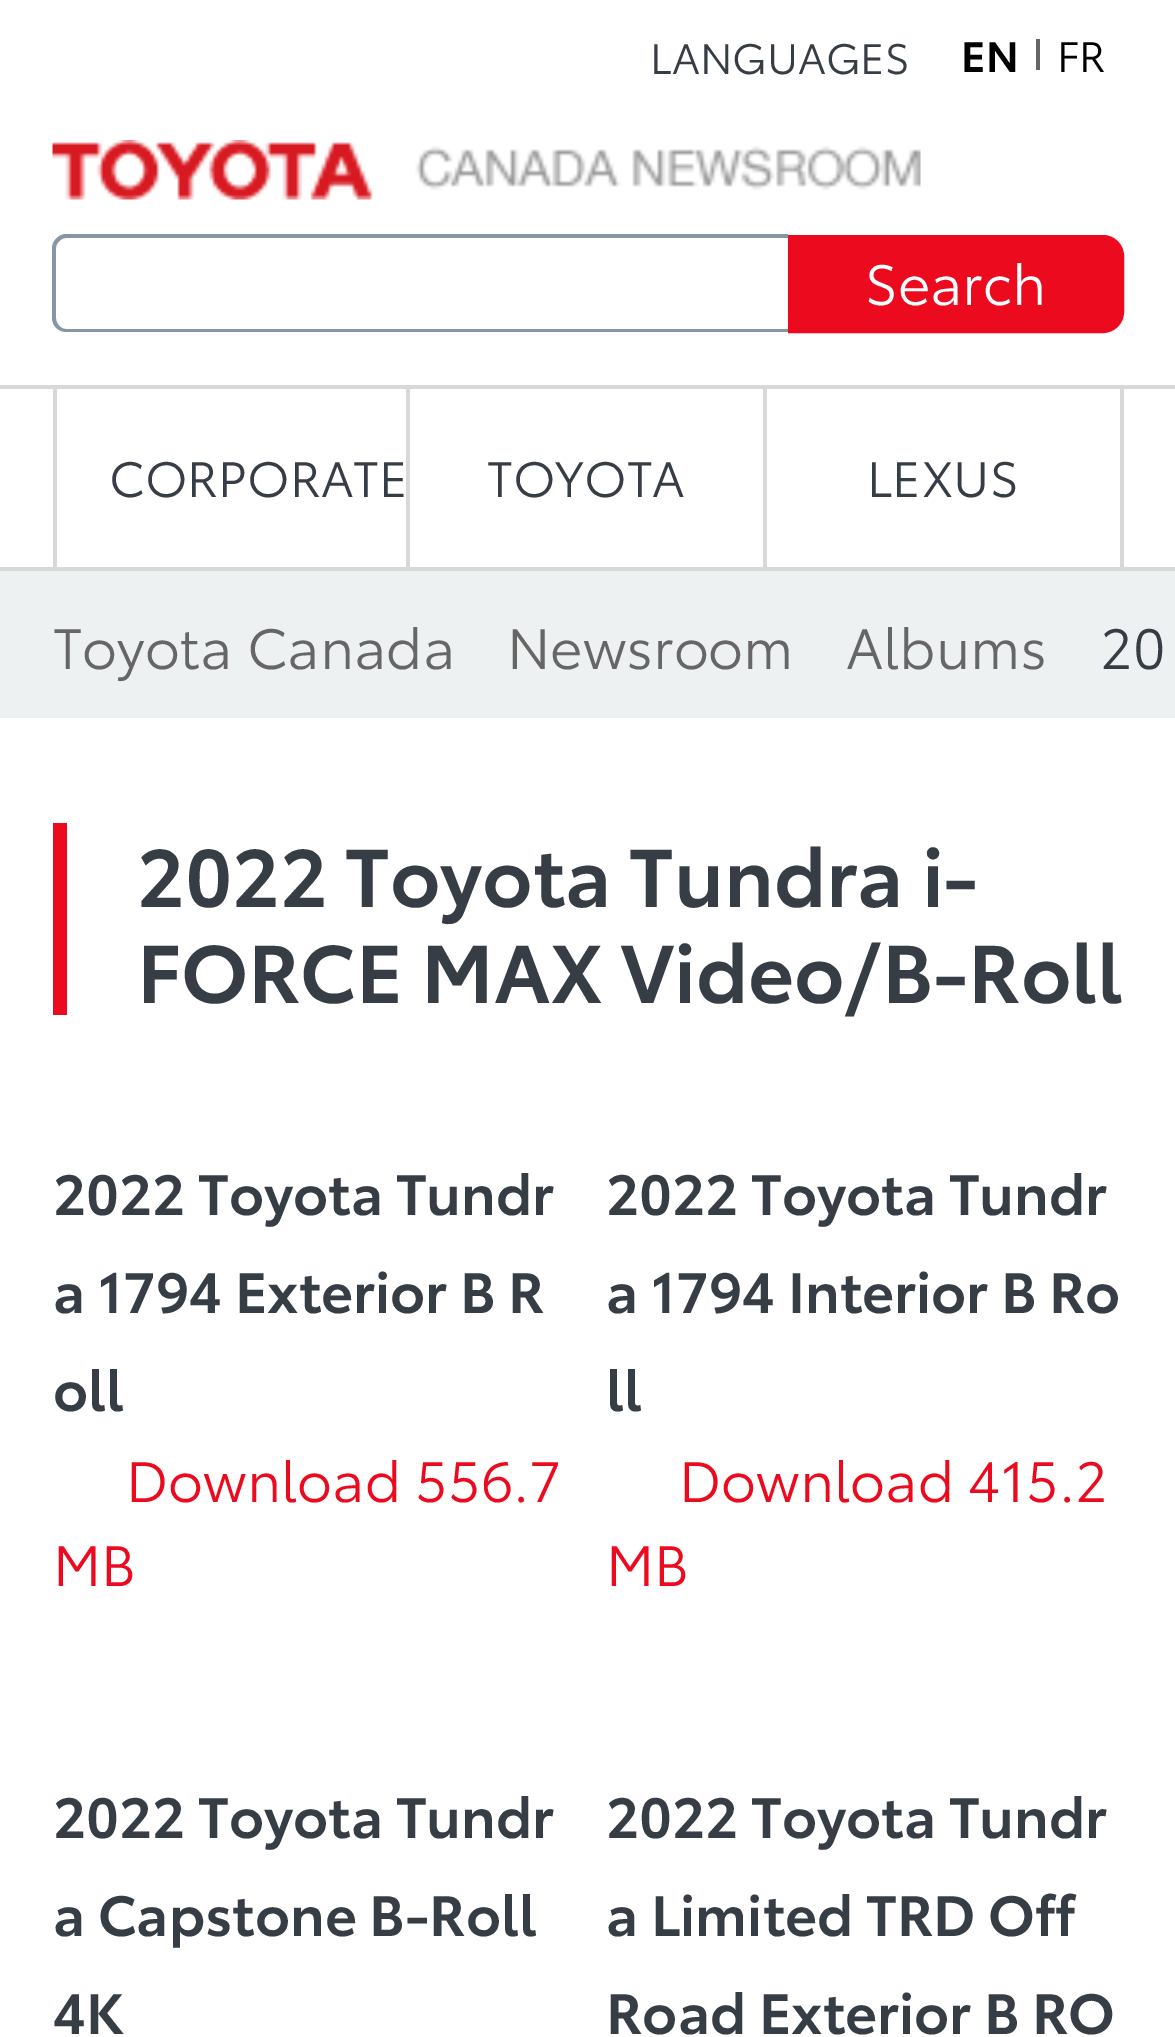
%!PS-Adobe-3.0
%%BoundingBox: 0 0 1175 2037
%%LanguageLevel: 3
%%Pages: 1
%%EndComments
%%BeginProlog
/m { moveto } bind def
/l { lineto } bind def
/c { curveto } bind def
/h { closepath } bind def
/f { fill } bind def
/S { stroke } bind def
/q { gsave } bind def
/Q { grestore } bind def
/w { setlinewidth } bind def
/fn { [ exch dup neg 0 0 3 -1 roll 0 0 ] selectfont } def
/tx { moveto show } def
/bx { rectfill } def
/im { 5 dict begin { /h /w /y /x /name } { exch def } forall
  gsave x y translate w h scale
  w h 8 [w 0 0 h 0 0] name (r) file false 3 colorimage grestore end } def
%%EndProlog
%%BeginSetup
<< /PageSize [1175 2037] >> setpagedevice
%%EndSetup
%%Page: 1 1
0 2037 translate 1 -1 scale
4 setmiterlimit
1 setgray
0 0 1175 2037 bx
/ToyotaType-Regular 42 fn
0.216 0.239 0.271 setrgbcolor
(LANGUAGES) 650 74 tx
0.4 setgray
1036 39 4 31 bx
/ToyotaType-SemiBold 42 fn
0 setgray
(EN) 961 72 tx
/ToyotaType-Regular 42 fn
(FR) 1057 72 tx
0.533 0.588 0.643 setrgbcolor
66 234 m 788 234 l 788 332 l 66 332 l 59 332 52 326 52 318 c 52 248 l 52 241 59 234 66 234 c h 66 238 m 788 238 l 788 329 l 66 329 l 61 329 56 324 56 318 c 56 248 l 56 243 61 238 66 238 c h eofill
0.922 0.039 0.118 setrgbcolor
791.5 238.5 m 1103 238.5 l 1112.5 238.5 1120.5 246.5 1120.5 256 c 1120.5 312 l 1120.5 321.5 1112.5 329.5 1103 329.5 c 791.5 329.5 l h q f Q
7 w
S
/ToyotaType-Regular 56 fn
1 setgray
(Search) 865 305 tx
(image0.raw) 52 140 869 60 im
0.847 setgray
0 385 1175 4 bx
0 567 1175 4 bx
1120 389 4 178 bx
53 389 4 178 bx
406 389 4 178 bx
/ToyotaType-Regular 49 fn
0.216 0.239 0.271 setrgbcolor
(CORPORATE) 109 497 tx
0.847 setgray
763 389 4 178 bx
0.216 0.239 0.271 setrgbcolor
(TOYOTA) 487 497 tx
(LEXUS) 867 497 tx
0.933 0.945 0.949 setrgbcolor
0 571 1175 147 bx
/ToyotaType-Regular 56 fn
0.4 setgray
(Toyota Canada) 53 669 tx
(Newsroom) 507 669 tx
(Albums) 846 669 tx
0.216 0.239 0.271 setrgbcolor
(20) 1100 669 tx
0.922 0.039 0.118 setrgbcolor
53 823 14 192 bx
/ToyotaType-SemiBold 80.5 fn
0.216 0.239 0.271 setrgbcolor
(2022 Toyota Tundra i-) 137 907 tx
(FORCE MAX Video/B-Roll) 137 1003 tx
/ToyotaType-SemiBold 56 fn
(2022 Toyota Tundr) 53 1215 tx
(a 1794 Exterior B R) 53 1313 tx
(oll) 53 1411 tx
/ToyotaType-Regular 56 fn
0.922 0.039 0.118 setrgbcolor
(Download 556.7) 126 1502 tx
(MB) 53 1586 tx
/ToyotaType-SemiBold 56 fn
0.216 0.239 0.271 setrgbcolor
(2022 Toyota Tundr) 606 1215 tx
(a 1794 Interior B Ro) 606 1313 tx
(ll) 606 1411 tx
/ToyotaType-Regular 56 fn
0.922 0.039 0.118 setrgbcolor
(Download 415.2) 679 1502 tx
(MB) 606 1586 tx
/ToyotaType-SemiBold 56 fn
0.216 0.239 0.271 setrgbcolor
(2022 Toyota Tundr) 53 1838 tx
(a Capstone B-Roll) 53 1936 tx
(4K) 53 2034 tx
(2022 Toyota Tundr) 606 1838 tx
(a Limited TRD Off) 606 1936 tx
(Road Exterior B RO) 606 2034 tx
showpage
%%EOF
